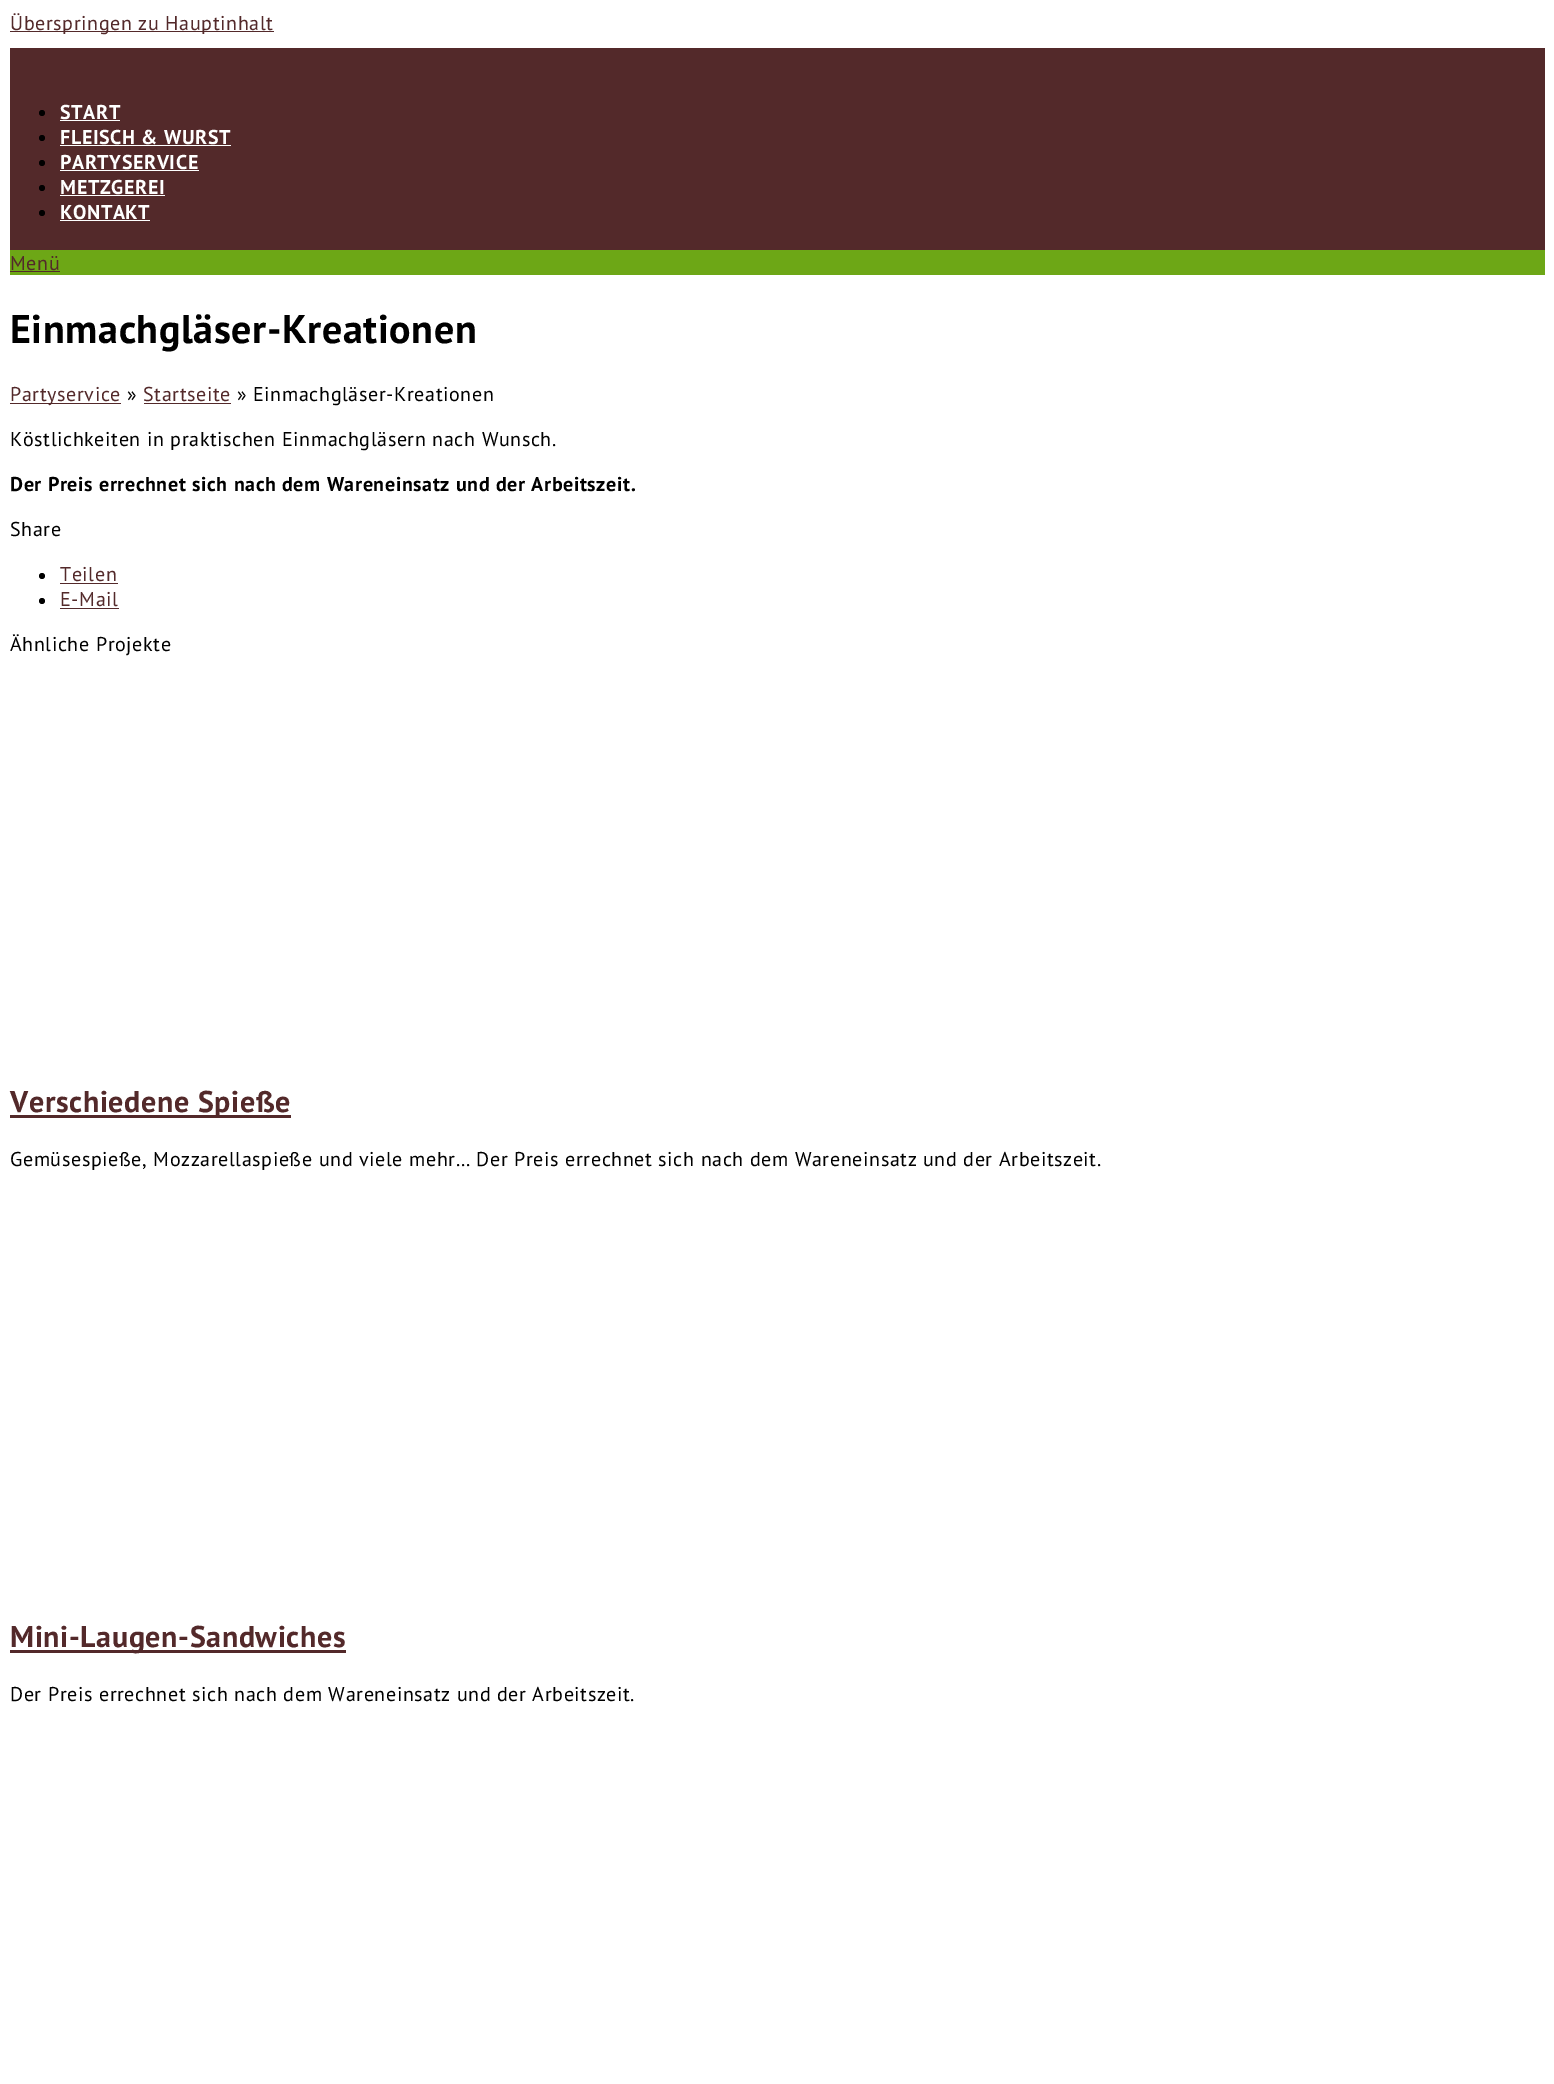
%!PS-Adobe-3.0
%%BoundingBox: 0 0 1554 2084
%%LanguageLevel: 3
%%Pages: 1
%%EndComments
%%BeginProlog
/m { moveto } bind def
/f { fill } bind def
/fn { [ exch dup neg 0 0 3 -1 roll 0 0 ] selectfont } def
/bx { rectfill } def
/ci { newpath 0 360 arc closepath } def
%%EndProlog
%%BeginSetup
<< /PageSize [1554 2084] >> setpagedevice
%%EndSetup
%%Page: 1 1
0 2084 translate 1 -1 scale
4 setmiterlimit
1 setgray
0 0 1554 2084 bx
0.325 0.161 0.165 setrgbcolor
10 31 264 1 bx
/PTSans-Regular 20 fn
10 30 m 0.62 0 (Überspringen zu Hauptinhalt) ashow
10 48 1535 202 bx
0 setgray
42 113 3 ci f
/PTSans-Bold 20 fn
1 setgray
60 119 m 0.62 0 (START) ashow
60 120 60 1 bx
0 setgray
42 138 3 ci f
1 setgray
60 144 m 0.62 0 (FLEISCH & WURST) ashow
60 145 171 1 bx
0 setgray
42 163 3 ci f
1 setgray
60 169 m 0.62 0 (PARTYSERVICE) ashow
60 170 139 1 bx
0 setgray
42 188 3 ci f
1 setgray
60 194 m 0.62 0 (METZGEREI) ashow
60 195 105 1 bx
0 setgray
42 213 3 ci f
1 setgray
60 219 m 0.62 0 (KONTAKT) ashow
60 220 90 1 bx
0.427 0.655 0.086 setrgbcolor
10 250 1535 25 bx
/PTSans-Regular 20 fn
0.325 0.161 0.165 setrgbcolor
10 270 m 0.62 0 (Menü) ashow
10 271 50 1 bx
/PTSans-Bold 40 fn
0 setgray
10 343 m 0.62 0 (Einmachgläser-Kreationen) ashow
0.325 0.161 0.165 setrgbcolor
10 403 111 1 bx
/PTSans-Regular 20 fn
10 401 m 0.62 0 (Partyservice) ashow
0 setgray
127 401 m 0.62 0 (») ashow
0.325 0.161 0.165 setrgbcolor
143 401 m 0.62 0 (Startseite) ashow
144 403 87 1 bx
0 setgray
237 401 m 0.62 0 (» Einmachgläser-Kreationen) ashow
10 446 m 0.62 0 (Köstlichkeiten in praktischen Einmachgläsern nach Wunsch.) ashow
/PTSans-Bold 20 fn
10 491 m 0.62 0 (Der Preis errechnet sich nach dem Wareneinsatz und der Arbeitszeit.) ashow
/PTSans-Regular 20 fn
10 536 m 0.62 0 (Share) ashow
42 576 3 ci f
0.325 0.161 0.165 setrgbcolor
60 581 m 0.62 0 (Teilen) ashow
60 583 58 1 bx
0 setgray
42 601 3 ci f
0.325 0.161 0.165 setrgbcolor
60 606 m 0.62 0 (E-Mail) ashow
60 608 59 1 bx
0 setgray
10 651 m 0.62 0 (Ähnliche Projekte) ashow
0.325 0.161 0.165 setrgbcolor
10 1115 281 3 bx
/PTSans-Bold 30 fn
10 1112 m 0.62 0 (Verschiedene Spieße) ashow
/PTSans-Regular 20 fn
0 setgray
10 1166 m 0.62 0 (Gemüsespieße, Mozzarellaspieße und viele mehr... Der Preis errechnet sich nach dem Wareneinsatz und der Arbeitszeit.) ashow
0.325 0.161 0.165 setrgbcolor
10 1650 336 3 bx
/PTSans-Bold 30 fn
10 1647 m 0.62 0 (Mini-Laugen-Sandwiches) ashow
/PTSans-Regular 20 fn
0 setgray
10 1701 m 0.62 0 (Der Preis errechnet sich nach dem Wareneinsatz und der Arbeitszeit.) ashow
showpage
%%EOF
